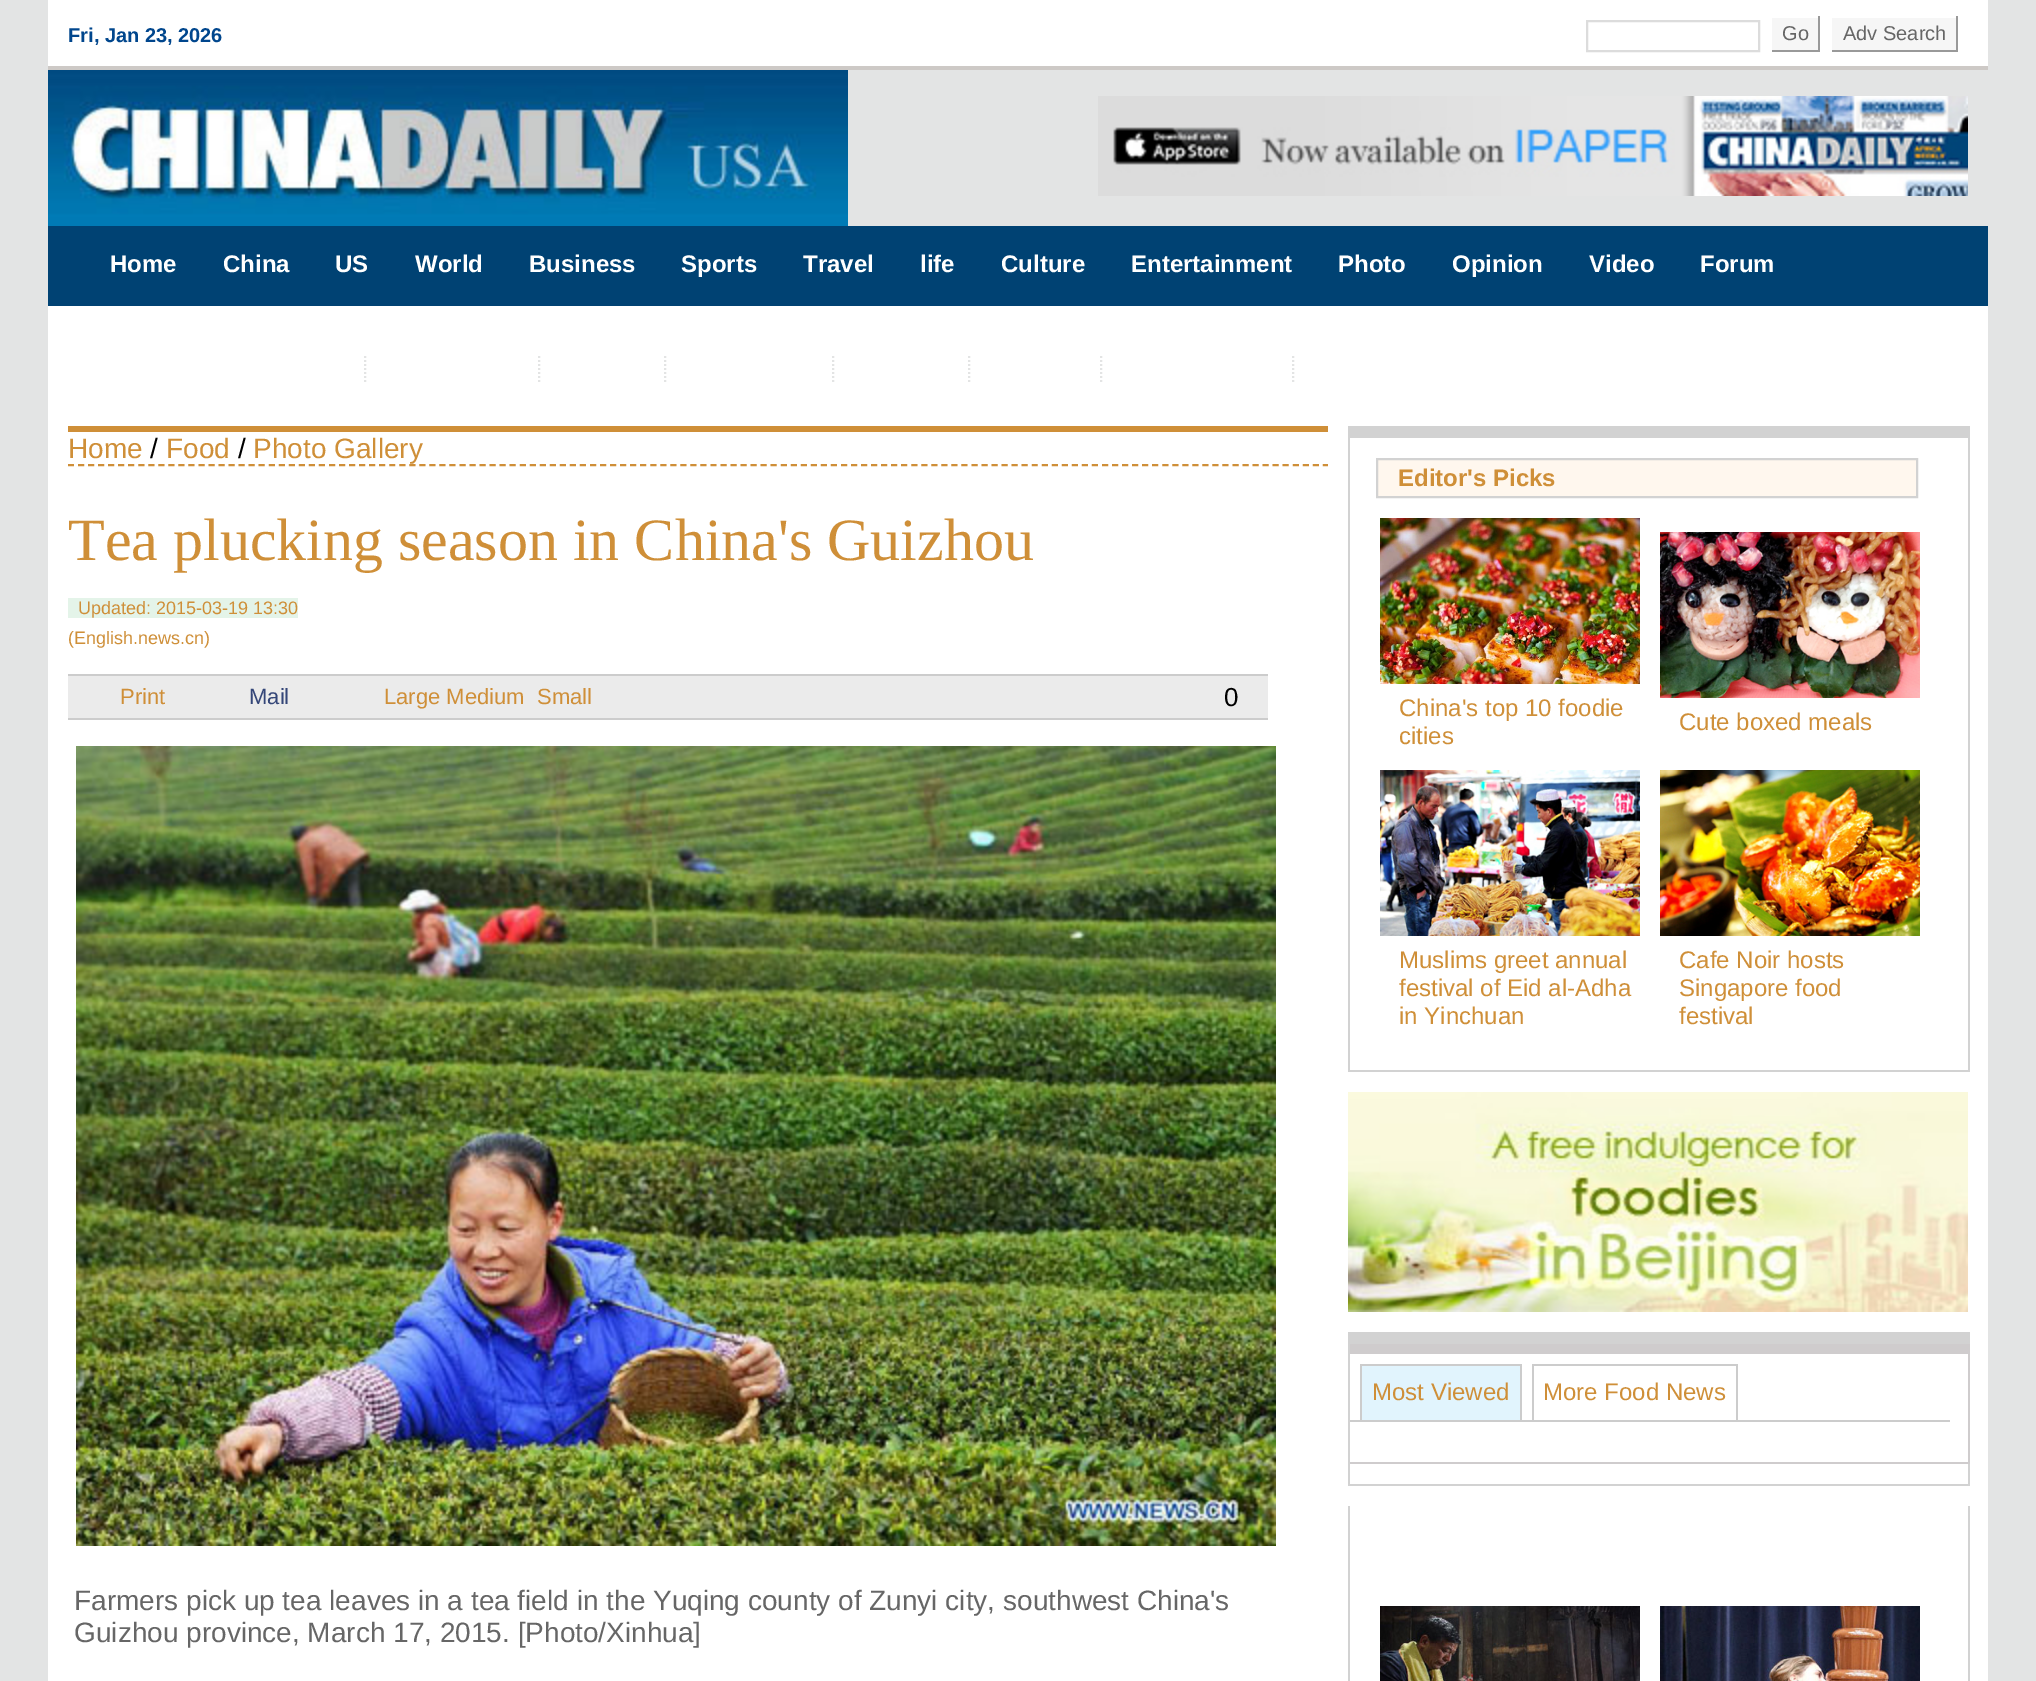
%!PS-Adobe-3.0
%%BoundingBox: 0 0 2036 1681
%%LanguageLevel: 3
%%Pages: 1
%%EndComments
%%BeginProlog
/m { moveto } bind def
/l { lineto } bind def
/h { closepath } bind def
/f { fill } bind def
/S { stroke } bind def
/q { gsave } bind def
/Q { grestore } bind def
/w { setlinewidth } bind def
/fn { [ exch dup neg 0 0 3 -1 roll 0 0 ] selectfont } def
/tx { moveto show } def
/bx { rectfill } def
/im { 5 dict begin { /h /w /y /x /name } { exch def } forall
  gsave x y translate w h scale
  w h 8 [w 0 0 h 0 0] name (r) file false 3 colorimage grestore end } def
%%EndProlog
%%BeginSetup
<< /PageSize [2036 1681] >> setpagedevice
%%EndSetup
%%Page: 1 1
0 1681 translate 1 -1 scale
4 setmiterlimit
0.89 0.894 0.894 setrgbcolor
0 0 2036 1681 bx
1 setgray
48 0 1940 66 bx
0.804 0.788 0.776 setrgbcolor
48 66 1940 4 bx
/LiberationSans-Bold 20 fn
0 0.275 0.553 setrgbcolor
(Fri, Jan 23, 2026) 68 42 tx
0.863 setgray
2 w
1587 21 172 30 rectstroke
0.965 setgray
1772 18 46 32 bx
0.6 setgray
1818 16 2 36 bx
1770 50 50 2 bx
1 setgray
1770 50 2 2 bx
/LiberationSans-Regular 20 fn
0.4 setgray
(Go) 1782 40 tx
0.965 setgray
1832 18 124 32 bx
0.6 setgray
1956 16 2 36 bx
1830 50 128 2 bx
1 setgray
1830 50 2 2 bx
0.4 setgray
(Adv Search) 1843 40 tx
(image0.raw) 48 70 800 156 im
(image1.raw) 1098 96 870 100 im
0 0.259 0.451 setrgbcolor
48 226 1940 80 bx
/LiberationSans-Bold 24 fn
1 setgray
(Home) 110 272 tx
(China) 223 272 tx
(US) 335 272 tx
(World) 415 272 tx
(Business) 529 272 tx
(Sports) 681 272 tx
(Travel) 803 272 tx
(life) 920 272 tx
(Culture) 1001 272 tx
(Entertainment) 1131 272 tx
(Photo) 1338 272 tx
(Opinion) 1452 272 tx
(Video) 1589 272 tx
(Forum) 1700 272 tx
48 306 1940 1375 bx
0.89 0.894 0.894 setrgbcolor
[2 2] 0 setdash
365 356 m 365 384 l S
539 356 m 539 384 l S
665 356 m 665 384 l S
833 356 m 833 384 l S
969 356 m 969 384 l S
1101 356 m 1101 384 l S
1293 356 m 1293 384 l S
0.812 0.561 0.22 setrgbcolor
68 426 1260 6 bx
[6 4.04] 0 setdash
68 465 m 1328 465 l S
/LiberationSans-Regular 28 fn
(Home) 68 458 tx
0 setgray
(/) 150 458 tx
0.812 0.561 0.22 setrgbcolor
(Food) 166 458 tx
0 setgray
(/) 238 458 tx
0.812 0.561 0.22 setrgbcolor
(Photo Gallery) 253 458 tx
/LiberationSerif-Regular 60 fn
(Tea plucking season in China's Guizhou) 68 560 tx
0.894 0.957 0.914 setrgbcolor
68 598 230 20 bx
/LiberationSans-Regular 18 fn
0.812 0.561 0.22 setrgbcolor
(Updated: 2015-03-19 13:30) 78 614 tx
(\(English.news.cn\)) 68 644 tx
0.922 setgray
68 676 1200 42 bx
0.8 setgray
68 674 1200 2 bx
68 718 1200 2 bx
/LiberationSans-Regular 22 fn
0.812 0.561 0.22 setrgbcolor
(Print) 120 704 tx
0.204 0.275 0.471 setrgbcolor
(Mail) 249 704 tx
0.812 0.561 0.22 setrgbcolor
(Large Medium) 384 704 tx
(Small) 537 704 tx
/LiberationSans-Regular 26 fn
0 setgray
(0) 1224 706 tx
(image2.raw) 76 746 1200 800 im
/LiberationSans-Regular 28 fn
0.4 setgray
(Farmers pick up tea leaves in a tea field in the Yuqing county of Zunyi city, southwest China's) 74 1610 tx
(Guizhou province, March 17, 2015. [Photo/Xinhua]) 74 1642 tx
0.824 setgray
1350 426 618 12 bx
1968 426 2 646 bx
1348 1070 622 2 bx
1348 426 2 646 bx
1 0.969 0.933 setrgbcolor
1377 459 m 1917 459 l 1917 497 l 1377 497 l h q f Q
0.824 setgray
[] 0 setdash
S
/LiberationSans-Bold 24 fn
0.812 0.561 0.22 setrgbcolor
(Editor's Picks) 1398 486 tx
(image3.raw) 1380 518 260 166 im
/LiberationSans-Regular 24 fn
(China's top 10 foodie) 1399 716 tx
(cities) 1399 744 tx
(image4.raw) 1660 532 260 166 im
(Cute boxed meals) 1679 730 tx
(image5.raw) 1380 770 260 166 im
(Muslims greet annual) 1399 968 tx
(festival of Eid al-Adha) 1399 996 tx
(in Yinchuan) 1399 1024 tx
(image6.raw) 1660 770 260 166 im
(Cafe Noir hosts) 1679 968 tx
(Singapore food) 1679 996 tx
(festival) 1679 1024 tx
(image7.raw) 1348 1092 620 220 im
0.824 setgray
1350 1332 618 12 bx
1968 1332 2 154 bx
1348 1484 622 2 bx
1348 1332 2 154 bx
0.812 0.8 0.804 setrgbcolor
1350 1344 618 10 bx
1968 1344 2 120 bx
1350 1462 620 2 bx
0.8 setgray
1350 1420 600 2 bx
0.882 0.957 0.992 setrgbcolor
1362 1366 158 54 bx
0.8 setgray
1360 1364 162 2 bx
1520 1364 2 56 bx
1360 1364 2 56 bx
0.812 0.561 0.22 setrgbcolor
(Most Viewed) 1372 1400 tx
0.8 setgray
1532 1364 206 2 bx
1736 1364 2 56 bx
1532 1364 2 56 bx
0.812 0.561 0.22 setrgbcolor
(More Food News) 1543 1400 tx
0.824 setgray
1968 1506 2 175 bx
1348 1506 2 175 bx
(image8.raw) 1380 1606 260 75 im
(image9.raw) 1660 1606 260 75 im
showpage
%%EOF
